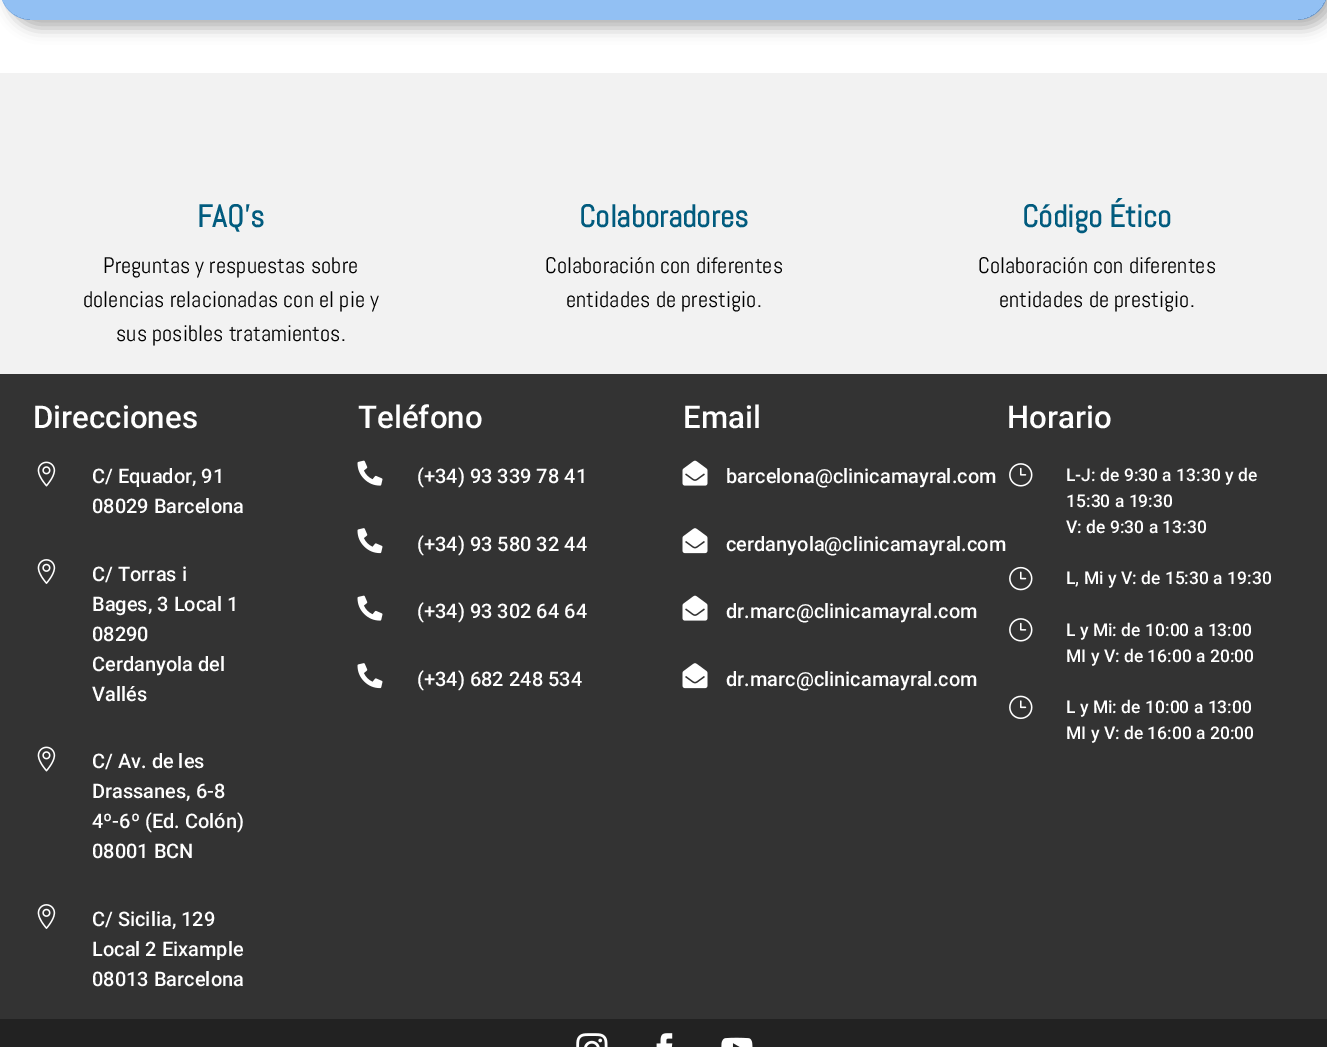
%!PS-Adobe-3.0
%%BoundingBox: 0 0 1327 1047
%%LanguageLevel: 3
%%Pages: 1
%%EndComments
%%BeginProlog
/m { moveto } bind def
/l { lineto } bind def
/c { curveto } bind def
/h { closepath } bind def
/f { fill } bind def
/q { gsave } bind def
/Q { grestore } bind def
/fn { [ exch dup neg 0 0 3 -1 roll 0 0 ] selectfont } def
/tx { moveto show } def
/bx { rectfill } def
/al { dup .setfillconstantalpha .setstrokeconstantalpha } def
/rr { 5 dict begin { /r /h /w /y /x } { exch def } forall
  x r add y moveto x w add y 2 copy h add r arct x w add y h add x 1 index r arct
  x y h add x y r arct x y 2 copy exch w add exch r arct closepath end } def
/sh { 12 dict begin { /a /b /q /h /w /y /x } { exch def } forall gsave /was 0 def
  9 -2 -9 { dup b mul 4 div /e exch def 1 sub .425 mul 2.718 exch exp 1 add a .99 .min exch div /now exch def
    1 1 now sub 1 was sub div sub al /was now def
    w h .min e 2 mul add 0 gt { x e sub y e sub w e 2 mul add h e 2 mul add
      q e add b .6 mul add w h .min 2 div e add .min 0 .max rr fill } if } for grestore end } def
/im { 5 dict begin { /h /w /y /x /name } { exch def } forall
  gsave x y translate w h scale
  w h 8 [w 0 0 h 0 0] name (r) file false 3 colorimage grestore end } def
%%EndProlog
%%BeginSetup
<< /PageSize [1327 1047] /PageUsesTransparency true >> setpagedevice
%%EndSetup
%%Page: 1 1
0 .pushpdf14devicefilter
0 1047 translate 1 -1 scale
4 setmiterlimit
1 setgray
0 0 1327 1047 bx
q
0 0 m 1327 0 l 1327 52 l 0 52 l h 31 -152 m 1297 -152 l 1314 -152 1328 -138 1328 -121 c 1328 -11 l 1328 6 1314 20 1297 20 c 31 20 l 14 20 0 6 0 -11 c 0 -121 l 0 -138 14 -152 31 -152 c h eoclip newpath
0 setgray
8 -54 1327 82 31 7.5 0.3 sh
Q
0.45 al
0.055 0.451 0.898 setrgbcolor
0 -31 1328 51 31 rr f
1 al
0.949 setgray
0 73 1327 301 bx
/Abel-Bold 31.25 fn
0.004 0.357 0.494 setrgbcolor
(FAQ's) 197 227 tx
/Abel-Regular 22.5 fn
0 setgray
(Preguntas y respuestas sobre) 103 273 tx
(dolencias relacionadas con el pie y) 83 307 tx
(sus posibles tratamientos.) 116 341 tx
/Abel-Bold 31.25 fn
0.004 0.357 0.494 setrgbcolor
(Colaboradores) 579 227 tx
/Abel-Regular 22.5 fn
0 setgray
(Colaboración con diferentes) 545 273 tx
(entidades de prestigio.) 566 307 tx
/Abel-Bold 31.25 fn
0.004 0.357 0.494 setrgbcolor
(Código Ético) 1022 227 tx
/Abel-Regular 22.5 fn
0 setgray
(Colaboración con diferentes) 978 273 tx
(entidades de prestigio.) 999 307 tx
0.2 setgray
0 374 1327 645 bx
/Roboto-Medium 31.25 fn
1 setgray
(Direcciones) 33 428 tx
(image0.raw) 37 461 19 26 im
/Roboto-Medium 20 fn
(C/ Equador, 91) 92 483 tx
(08029 Barcelona) 92 513 tx
(image1.raw) 37 559 19 25 im
(C/ Torras i) 92 581 tx
(Bages, 3 Local 1) 92 611 tx
(08290) 92 641 tx
(Cerdanyola del) 92 671 tx
(Vallés) 92 701 tx
(image0.raw) 37 746 19 26 im
(C/ Av. de les) 92 768 tx
(Drassanes, 6-8) 92 798 tx
(4º-6º \(Ed. Colón\)) 92 828 tx
(08001 BCN) 92 858 tx
(image1.raw) 37 904 19 25 im
(C/ Sicilia, 129) 92 926 tx
(Local 2 Eixample) 92 956 tx
(08013 Barcelona) 92 986 tx
/Roboto-Medium 31.25 fn
(Teléfono) 358 428 tx
(image2.raw) 357 460 26 26 im
/Roboto-Medium 20 fn
(\(+34\) 93 339 78 41) 417 483 tx
(image3.raw) 357 528 26 26 im
(\(+34\) 93 580 32 44) 417 551 tx
(image2.raw) 357 595 26 26 im
(\(+34\) 93 302 64 64) 417 618 tx
(image3.raw) 357 663 26 26 im
(\(+34\) 682 248 534) 417 686 tx
/Roboto-Medium 31.25 fn
(Email) 683 428 tx
(image4.raw) 682 460 26 26 im
/Roboto-Medium 20 fn
(barcelona@clinicamayral.com) 726 483 tx
(image5.raw) 682 528 26 26 im
(cerdanyola@clinicamayral.com) 726 551 tx
(image4.raw) 682 595 26 26 im
(dr.marc@clinicamayral.com) 726 618 tx
(image5.raw) 682 663 26 26 im
(dr.marc@clinicamayral.com) 726 686 tx
/Roboto-Medium 31.25 fn
(Horario) 1007 428 tx
(image6.raw) 1009 463 24 24 im
/Roboto-Medium 17.5 fn
(L-J: de 9:30 a 13:30 y de) 1066 481 tx
(15:30 a 19:30) 1066 507 tx
(V: de 9:30 a 13:30) 1066 533 tx
(image7.raw) 1009 566 24 25 im
(L, Mi y V: de 15:30 a 19:30) 1066 584 tx
(image6.raw) 1009 618 24 24 im
(L y Mi: de 10:00 a 13:00) 1066 636 tx
(MI y V: de 16:00 a 20:00) 1066 662 tx
(image8.raw) 1009 695 24 25 im
(L y Mi: de 10:00 a 13:00) 1066 713 tx
(MI y V: de 16:00 a 20:00) 1066 739 tx
0.133 setgray
0 1019 1327 28 bx
(image9.raw) 576 1033 32 14 im
(image10.raw) 656 1033 17 14 im
(image11.raw) 721 1037 32 10 im
.poppdf14devicefilter showpage
%%EOF
